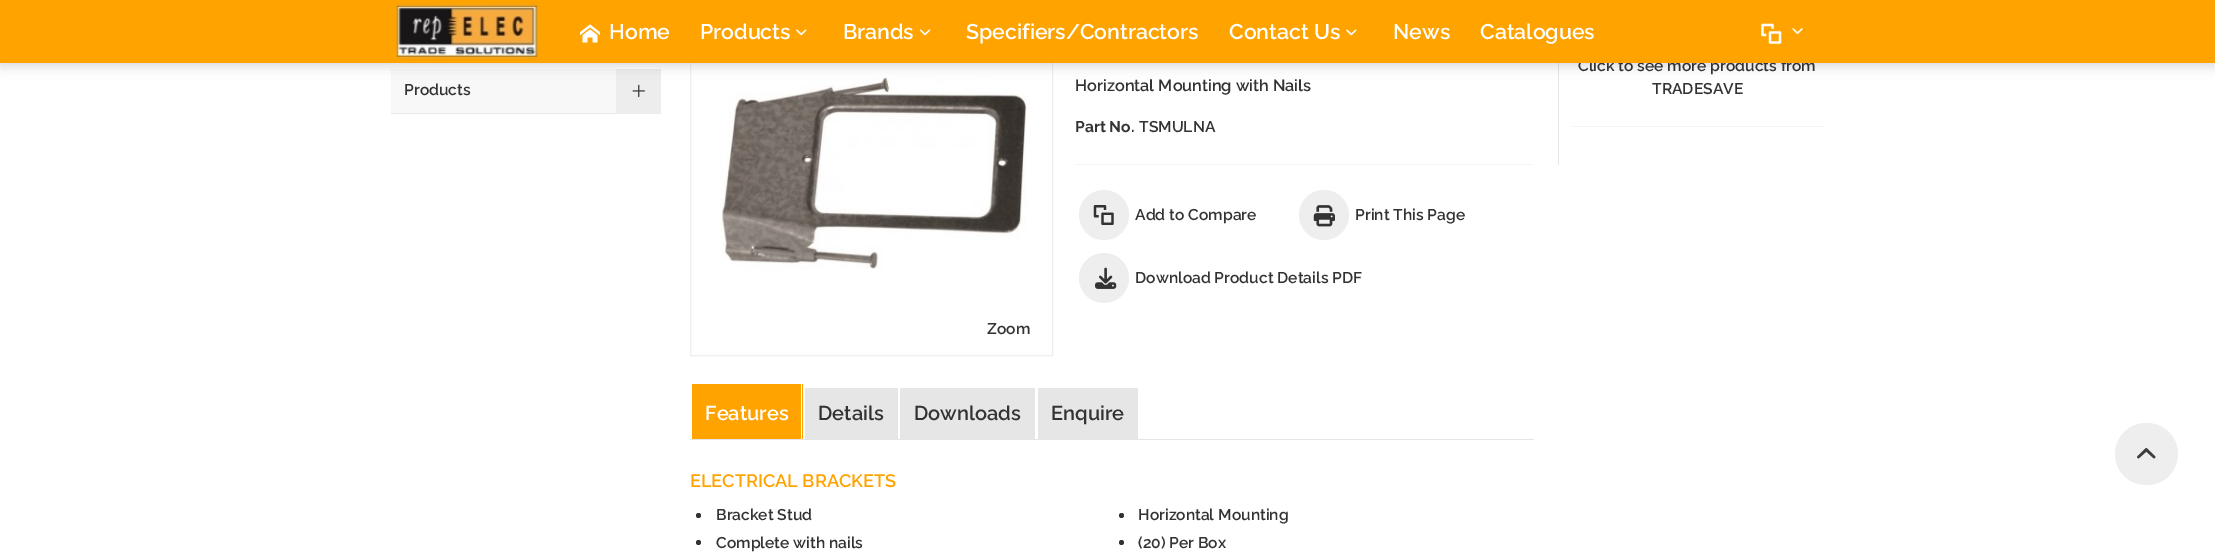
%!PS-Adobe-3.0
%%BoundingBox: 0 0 2215 555
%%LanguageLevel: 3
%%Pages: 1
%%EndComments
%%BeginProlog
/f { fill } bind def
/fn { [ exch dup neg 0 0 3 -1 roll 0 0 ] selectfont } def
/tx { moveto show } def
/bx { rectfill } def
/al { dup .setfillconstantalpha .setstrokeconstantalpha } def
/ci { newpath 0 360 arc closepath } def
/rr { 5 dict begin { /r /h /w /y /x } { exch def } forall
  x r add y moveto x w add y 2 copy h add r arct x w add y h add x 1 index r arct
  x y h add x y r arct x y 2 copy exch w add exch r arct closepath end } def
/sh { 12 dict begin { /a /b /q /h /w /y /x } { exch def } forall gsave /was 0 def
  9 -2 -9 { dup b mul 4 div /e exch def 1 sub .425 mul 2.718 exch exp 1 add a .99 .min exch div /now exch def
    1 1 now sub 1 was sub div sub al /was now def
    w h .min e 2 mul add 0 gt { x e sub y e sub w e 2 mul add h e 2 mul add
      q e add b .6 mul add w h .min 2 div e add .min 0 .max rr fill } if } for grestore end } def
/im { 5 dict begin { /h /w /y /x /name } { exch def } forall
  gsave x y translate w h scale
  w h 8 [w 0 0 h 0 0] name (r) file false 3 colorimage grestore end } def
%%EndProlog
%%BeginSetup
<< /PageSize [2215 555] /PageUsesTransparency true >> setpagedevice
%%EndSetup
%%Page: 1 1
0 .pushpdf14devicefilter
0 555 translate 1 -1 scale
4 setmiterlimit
1 setgray
0 0 2215 555 bx
0.973 setgray
391 69 225 44 bx
0.929 setgray
616 69 45 45 bx
(image6.raw) 632 84 13 14 im
0.898 setgray
1558 63 1 102 bx
0.933 setgray
690.5 -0.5 362 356 rectstroke
(image10.raw) 720 77 307 192 im
0 setgray
0 4 2215 62 0 6 0.15 sh
/Raleway-SemiBold 15.6 fn
0.2 setgray
(Click to see more products from) 1578 71 tx
1 0.639 0 setrgbcolor
0 0 2215 63 bx
(image0.raw) 395 3 144 56 im
(image1.raw) 580 24 20 19 im
/Raleway-SemiBold 21.25 fn
1 setgray
(Home) 609 39 tx
(Products) 700 39 tx
(image2.raw) 796 29 11 7 im
(Brands) 843 39 tx
(image3.raw) 919 29 12 7 im
(Specifiers/Contractors) 966 39 tx
(Contact Us) 1229 39 tx
(image2.raw) 1346 29 11 7 im
(News) 1393 39 tx
(Catalogues) 1480 39 tx
(image4.raw) 1761 23 21 21 im
(image5.raw) 1792 28 11 6 im
0.914 setgray
391 113 225 1 bx
/Raleway-SemiBold 15.6 fn
0.2 setgray
(Products) 404 95 tx
/Raleway-SemiBold 16.25 fn
(Horizontal Mounting with Nails) 1075 91 tx
0.961 setgray
1075 164 459 1 bx
/Raleway-Bold 15.6 fn
0.2 setgray
(Part No.) 1075 132 tx
/Raleway-SemiBold 15.6 fn
(TSMULNA) 1139 132 tx
0.933 setgray
1104 215 25 ci f
(image7.raw) 1093 205 21 20 im
0.2 setgray
(Add to Compare) 1135 220 tx
0.933 setgray
1324 215 25 ci f
(image8.raw) 1313 205 22 22 im
0.2 setgray
(Print This Page) 1355 220 tx
0.933 setgray
1104 278 25 ci f
(image9.raw) 1095 267 22 22 im
0.2 setgray
(Download Product Details PDF) 1135 283 tx
0.961 setgray
1571 126 253 1 bx
0.2 setgray
(TRADESAVE) 1652 94 tx
(Zoom) 987 334 tx
1 0.639 0 setrgbcolor
692 384 111 55 bx
1 setgray
801 383 1 56 bx
/Raleway-SemiBold 20 fn
(Features) 705 420 tx
0.902 setgray
805 388 93 51 bx
0.2 setgray
(Details) 818 420 tx
0.902 setgray
900 388 135 51 bx
0.2 setgray
(Downloads) 914 420 tx
0.902 setgray
1038 388 100 51 bx
0.2 setgray
(Enquire) 1051 420 tx
0.898 setgray
690 439 844 1 bx
/Raleway-SemiBold 18.1 fn
1 0.639 0 setrgbcolor
(ELECTRICAL BRACKETS) 690 487 tx
0.2 setgray
698.5 515.5 2.5 ci f
/Raleway-SemiBold 15.6 fn
(Bracket Stud) 716 520 tx
1121.5 515.5 2.5 ci f
(Horizontal Mounting) 1138 520 tx
698.5 542.5 2.5 ci f
(Complete with nails) 716 548 tx
1121.5 542.5 2.5 ci f
(\(20\) Per Box) 1138 548 tx
0.933 setgray
2115 423 63 62 31 rr f
(image11.raw) 2137 448 19 11 im
.poppdf14devicefilter showpage
%%EOF
